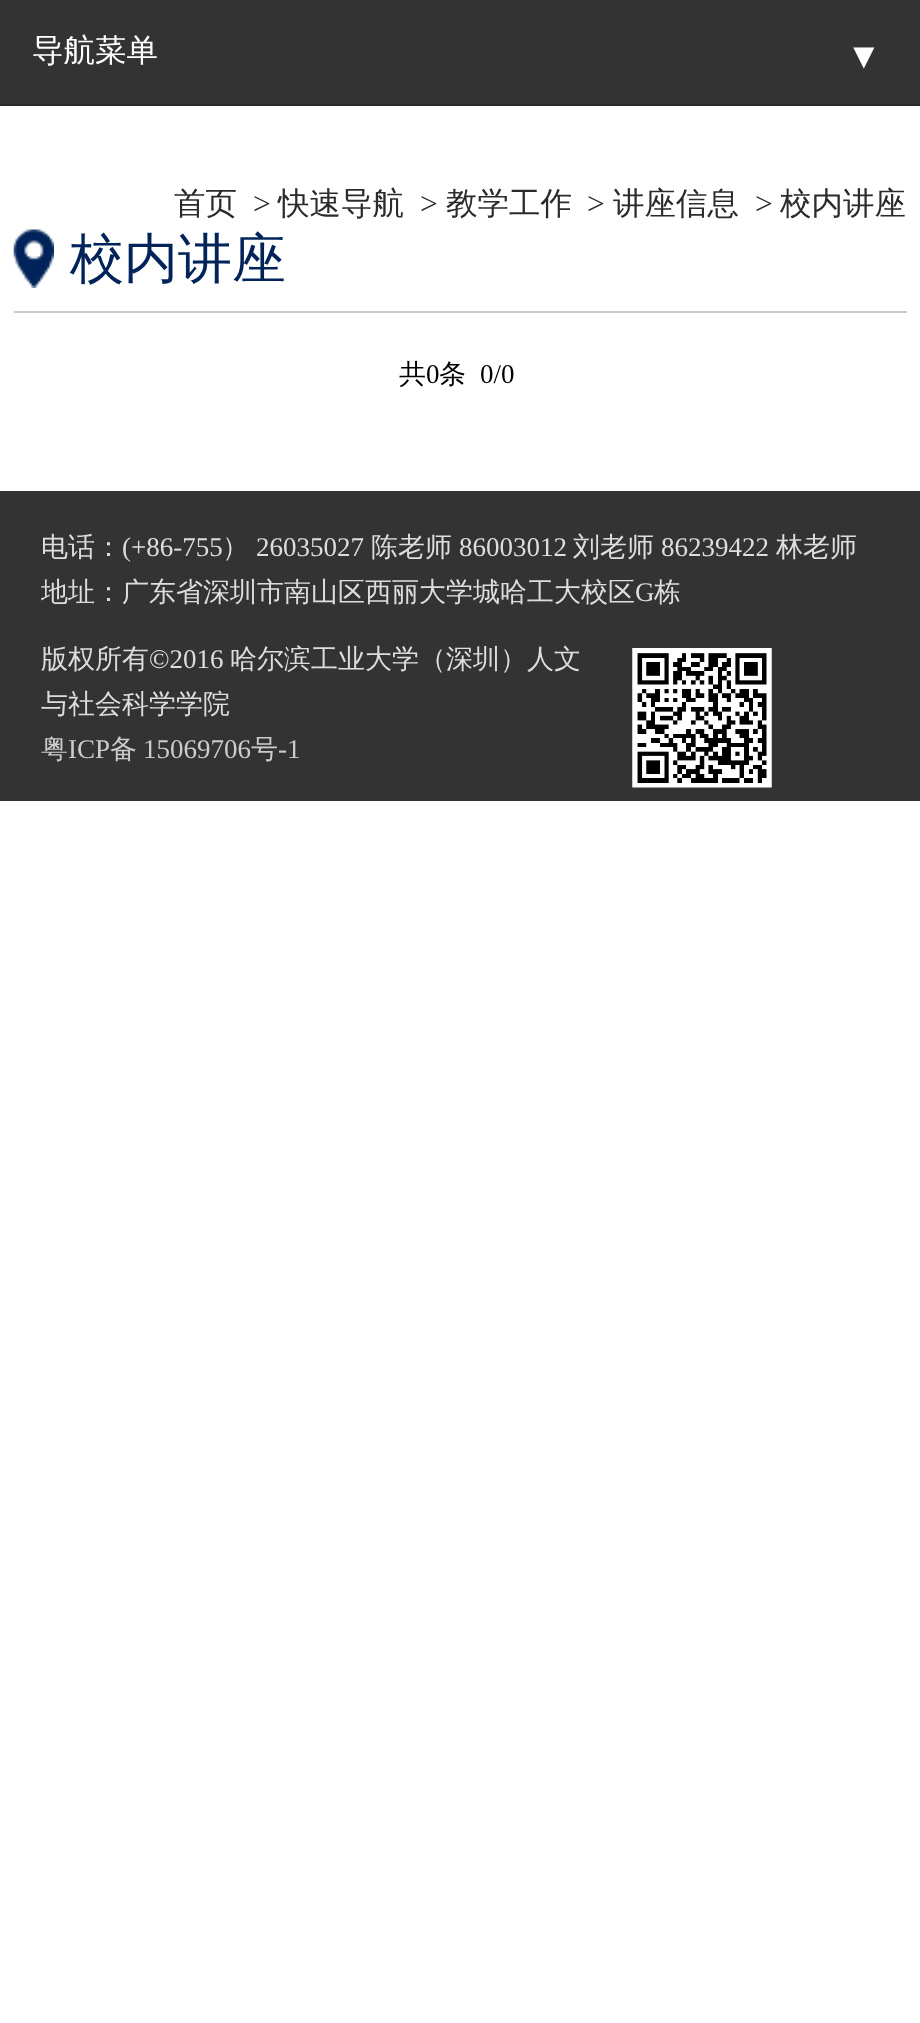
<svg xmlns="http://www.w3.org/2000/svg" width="920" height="2023">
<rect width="100%" height="100%" fill="#fff"/>
<rect width="920" height="104" fill="#333"/>
<rect y="104" width="920" height="2" fill="#292929"/>
<text x="32" y="61" style="font-family:WenQuanYi Zen Hei;font-size:31.5px;font-weight:500;fill:#fff">导航菜单</text>
<text x="846" y="68" style="font-family:Liberation Serif;font-size:36px;font-style:italic;fill:#fff">▼</text>
<rect x="14" y="311" width="893" height="2" fill="#cacaca"/>
<text x="174" y="214" style="font-family:WenQuanYi Zen Hei;font-size:31.5px;font-weight:500;fill:#2b2b2b">首页</text>
<text x="253" y="214" style="font-family:Liberation Serif;font-size:31.5px;fill:#2b2b2b">&gt;</text>
<text x="278" y="214" style="font-family:WenQuanYi Zen Hei;font-size:31.5px;font-weight:500;fill:#2b2b2b">快速导航</text>
<text x="420" y="214" style="font-family:Liberation Serif;font-size:31.5px;fill:#2b2b2b">&gt;</text>
<text x="446" y="214" style="font-family:WenQuanYi Zen Hei;font-size:31.5px;font-weight:500;fill:#2b2b2b">教学工作</text>
<text x="587" y="214" style="font-family:Liberation Serif;font-size:31.5px;fill:#2b2b2b">&gt;</text>
<text x="613" y="214" style="font-family:WenQuanYi Zen Hei;font-size:31.5px;font-weight:500;fill:#2b2b2b">讲座信息</text>
<text x="755" y="214" style="font-family:Liberation Serif;font-size:31.5px;fill:#2b2b2b">&gt;</text>
<text x="780" y="214" style="font-family:WenQuanYi Zen Hei;font-size:31.5px;font-weight:500;fill:#2b2b2b">校内讲座</text>
<image x="13" y="229" width="41" height="59" href="media/1.png"/>
<text x="70" y="277" style="font-family:WenQuanYi Zen Hei;font-size:54px;font-weight:500;fill:#002459">校内讲座</text>
<text x="399" y="383" style="font-family:WenQuanYi Zen Hei;font-size:27px;font-weight:500;fill:#000">共</text>
<text x="426" y="383" style="font-family:Liberation Serif;font-size:27px;fill:#000">0</text>
<text x="439" y="383" style="font-family:WenQuanYi Zen Hei;font-size:27px;font-weight:500;fill:#000">条</text>
<text x="480" y="383" style="font-family:Liberation Serif;font-size:27px;fill:#000">0/0</text>
<rect y="491" width="920" height="310" fill="#333"/>
<text x="41" y="556" style="font-family:WenQuanYi Zen Hei;font-size:27px;font-weight:500;fill:#ddd">电话：</text>
<text x="122" y="556" style="font-family:Liberation Serif;font-size:27px;fill:#ddd">(+86-755</text>
<text x="222" y="556" style="font-family:WenQuanYi Zen Hei;font-size:27px;font-weight:500;fill:#ddd">）</text>
<text x="256" y="556" style="font-family:Liberation Serif;font-size:27px;fill:#ddd">26035027</text>
<text x="371" y="556" style="font-family:WenQuanYi Zen Hei;font-size:27px;font-weight:500;fill:#ddd">陈老师</text>
<text x="459" y="556" style="font-family:Liberation Serif;font-size:27px;fill:#ddd">86003012</text>
<text x="573" y="556" style="font-family:WenQuanYi Zen Hei;font-size:27px;font-weight:500;fill:#ddd">刘老师</text>
<text x="661" y="556" style="font-family:Liberation Serif;font-size:27px;fill:#ddd">86239422</text>
<text x="776" y="556" style="font-family:WenQuanYi Zen Hei;font-size:27px;font-weight:500;fill:#ddd">林老师</text>
<text x="41" y="601" style="font-family:WenQuanYi Zen Hei;font-size:27px;font-weight:500;fill:#ddd">地址：广东省深圳市南山区西丽大学城哈工大校区</text>
<text x="635" y="601" style="font-family:Liberation Serif;font-size:27px;fill:#ddd">G</text>
<text x="654" y="601" style="font-family:WenQuanYi Zen Hei;font-size:27px;font-weight:500;fill:#ddd">栋</text>
<text x="41" y="668" style="font-family:WenQuanYi Zen Hei;font-size:27px;font-weight:500;fill:#ddd">版权所有</text>
<text x="149" y="668" style="font-family:Liberation Serif;font-size:27px;fill:#ddd">©2016</text>
<text x="230" y="668" style="font-family:WenQuanYi Zen Hei;font-size:27px;font-weight:500;fill:#ddd">哈尔滨工业大学（深圳）人文</text>
<text x="41" y="713" style="font-family:WenQuanYi Zen Hei;font-size:27px;font-weight:500;fill:#ddd">与社会科学学院</text>
<text x="41" y="758" style="font-family:WenQuanYi Zen Hei;font-size:27px;font-weight:500;fill:#ccc">粤</text>
<text x="68" y="758" style="font-family:Liberation Serif;font-size:27px;fill:#ccc">ICP</text>
<text x="110" y="758" style="font-family:WenQuanYi Zen Hei;font-size:27px;font-weight:500;fill:#ccc">备</text>
<text x="143" y="758" style="font-family:Liberation Serif;font-size:27px;fill:#ccc">15069706</text>
<text x="251" y="758" style="font-family:WenQuanYi Zen Hei;font-size:27px;font-weight:500;fill:#ccc">号</text>
<text x="278" y="758" style="font-family:Liberation Serif;font-size:27px;fill:#ccc">-1</text>
<image x="632" y="648" width="140" height="140" href="media/2.png"/>
</svg>
